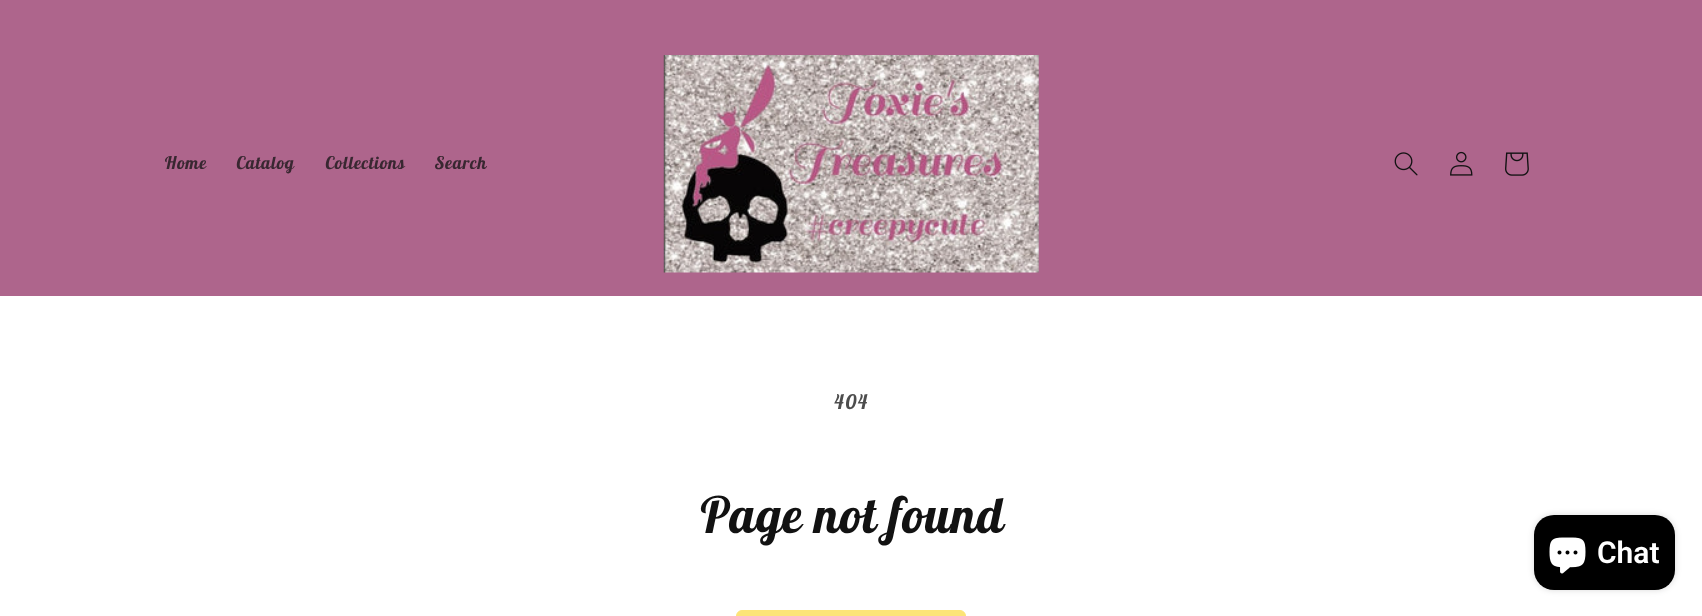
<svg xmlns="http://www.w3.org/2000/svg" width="1702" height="616">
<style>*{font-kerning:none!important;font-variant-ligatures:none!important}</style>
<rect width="100%" height="100%" fill="#fff"/>
<rect width="1702" height="296" fill="#ae658c"/>
<text x="164" y="169" style="font-family:Lobster Two;font-size:17.5px;font-weight:bold;font-style:italic;letter-spacing:0.75px;fill:#392731">Home</text>
<text x="236" y="169" style="font-family:Lobster Two;font-size:17.5px;font-weight:bold;font-style:italic;letter-spacing:0.75px;fill:#392731">Catalog</text>
<text x="325" y="169" style="font-family:Lobster Two;font-size:17.5px;font-weight:bold;font-style:italic;letter-spacing:0.75px;fill:#392731">Collections</text>
<text x="435" y="169" style="font-family:Lobster Two;font-size:17.5px;font-weight:bold;font-style:italic;letter-spacing:0.75px;fill:#392731">Search</text>
<image x="663" y="55" width="376" height="218" href="media/1.png"/>
<image x="1394" y="152" width="24" height="24" href="media/2.png"/>
<image x="1450" y="151" width="23" height="25" href="media/3.png"/>
<image x="1505" y="152" width="24" height="24" href="media/4.png"/>
<text x="834" y="409" style="font-family:Lobster Two;font-size:20px;font-weight:bold;font-style:italic;letter-spacing:0.75px;fill:#4d4d4d">404</text>
<text x="698" y="533" style="font-family:Lobster Two;font-size:50px;font-weight:bold;font-style:italic;letter-spacing:0.75px;fill:#121212">Page not found</text>
<rect x="736.5" y="610.5" width="229" height="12" rx="5.5" fill="#fce477" stroke="#fce477"/>
<rect x="1534" y="515" width="141" height="75" rx="20" fill="#00000026" filter="blur(3px)"/>
<rect x="1534" y="515" width="141" height="75" rx="20" fill="#000"/>
<image x="1549" y="537" width="37" height="37" href="media/5.png"/>
<text x="1597" y="563" style="font-family:Roboto;font-size:30px;font-weight:600;fill:#fff">Chat</text>
</svg>
